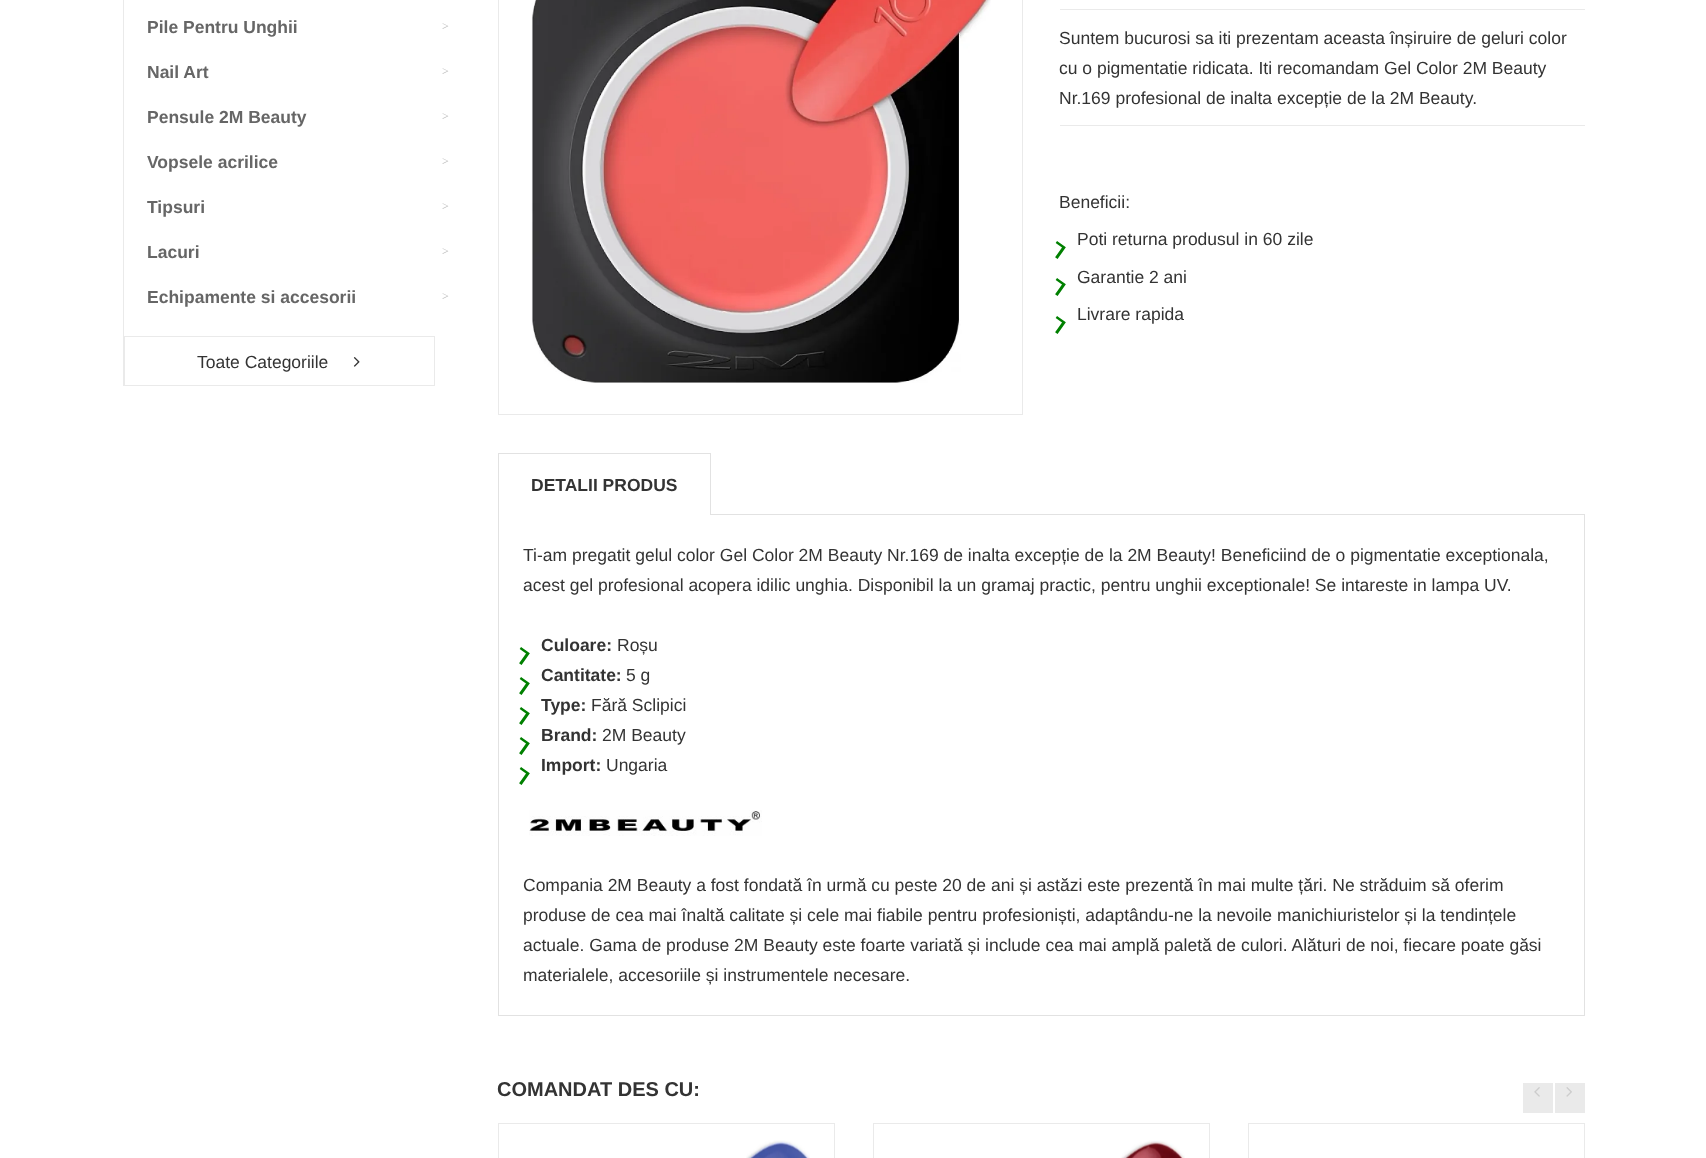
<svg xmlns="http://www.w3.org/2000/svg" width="1706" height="1158">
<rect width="100%" height="100%" fill="#fff"/>
<rect x="123" width="1" height="386" fill="#eaeaea"/>
<text x="147" y="33" style="font-family:Liberation Sans;font-size:17.5px;font-weight:bold;fill:#666">Pile Pentru Unghii</text>
<text x="442" y="30" style="font-family:Liberation Serif;font-size:12px;fill:#bbb">&gt;</text>
<text x="147" y="78" style="font-family:Liberation Sans;font-size:17.5px;font-weight:bold;fill:#666">Nail Art</text>
<text x="442" y="75" style="font-family:Liberation Serif;font-size:12px;fill:#bbb">&gt;</text>
<text x="147" y="123" style="font-family:Liberation Sans;font-size:17.5px;font-weight:bold;fill:#666">Pensule 2M Beauty</text>
<text x="442" y="120" style="font-family:Liberation Serif;font-size:12px;fill:#bbb">&gt;</text>
<text x="147" y="168" style="font-family:Liberation Sans;font-size:17.5px;font-weight:bold;fill:#666">Vopsele acrilice</text>
<text x="442" y="165" style="font-family:Liberation Serif;font-size:12px;fill:#bbb">&gt;</text>
<text x="147" y="213" style="font-family:Liberation Sans;font-size:17.5px;font-weight:bold;fill:#666">Tipsuri</text>
<text x="442" y="210" style="font-family:Liberation Serif;font-size:12px;fill:#bbb">&gt;</text>
<text x="147" y="258" style="font-family:Liberation Sans;font-size:17.5px;font-weight:bold;fill:#666">Lacuri</text>
<text x="442" y="255" style="font-family:Liberation Serif;font-size:12px;fill:#bbb">&gt;</text>
<text x="147" y="303" style="font-family:Liberation Sans;font-size:17.5px;font-weight:bold;fill:#666">Echipamente si accesorii</text>
<text x="442" y="300" style="font-family:Liberation Serif;font-size:12px;fill:#bbb">&gt;</text>
<rect x="124.5" y="336.5" width="310" height="49" fill="none" stroke="#eaeaea"/>
<text x="197" y="368" style="font-family:Liberation Sans;font-size:17.5px;fill:#333">Toate Categoriile</text>
<image x="353" y="357" width="7" height="10" href="media/1.png"/>
<rect x="498.5" y="-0.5" width="524" height="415" fill="none" stroke="#eaeaea"/>
<image x="531" y="0" width="460" height="383" href="media/2.png"/>
<rect x="1060" y="9" width="525" height="1" fill="#eaeaea"/>
<text x="1059" y="44" style="font-family:Liberation Sans;font-size:17.5px;fill:#333">Suntem bucurosi sa iti prezentam aceasta înșiruire de geluri color</text>
<text x="1059" y="74" style="font-family:Liberation Sans;font-size:17.5px;fill:#333">cu o pigmentatie ridicata. Iti recomandam Gel Color 2M Beauty</text>
<text x="1059" y="104" style="font-family:Liberation Sans;font-size:17.5px;fill:#333">Nr.169 profesional de inalta excepție de la 2M Beauty.</text>
<rect x="1060" y="125" width="525" height="1" fill="#eaeaea"/>
<text x="1059" y="208" style="font-family:Liberation Sans;font-size:17.5px;fill:#333">Beneficii:</text>
<text x="1067" y="248" transform="rotate(-145 1067 248)" style="font-family:Liberation Sans;font-size:21px;font-weight:bold;fill:#008000">L</text>
<text x="1077" y="245" style="font-family:Liberation Sans;font-size:17.5px;fill:#333">Poti returna produsul in 60 zile</text>
<text x="1067" y="285" transform="rotate(-145 1067 285)" style="font-family:Liberation Sans;font-size:21px;font-weight:bold;fill:#008000">L</text>
<text x="1077" y="283" style="font-family:Liberation Sans;font-size:17.5px;fill:#333">Garantie 2 ani</text>
<text x="1067" y="323" transform="rotate(-145 1067 323)" style="font-family:Liberation Sans;font-size:21px;font-weight:bold;fill:#008000">L</text>
<text x="1077" y="320" style="font-family:Liberation Sans;font-size:17.5px;fill:#333">Livrare rapida</text>
<rect x="498" y="453" width="213" height="61" fill="#e2e2e2"/>
<rect x="498.5" y="514.5" width="1086" height="501" fill="none" stroke="#e2e2e2"/>
<rect x="499" y="454" width="211" height="61" fill="#fff"/>
<text x="531" y="491" style="font-family:Liberation Sans;font-size:17.5px;font-weight:bold;fill:#333">DETALII PRODUS</text>
<text x="523" y="561" style="font-family:Liberation Sans;font-size:17.5px;fill:#333">Ti-am pregatit gelul color Gel Color 2M Beauty Nr.169 de inalta excepție de la 2M Beauty! Beneficiind de o pigmentatie exceptionala,</text>
<text x="523" y="591" style="font-family:Liberation Sans;font-size:17.5px;fill:#333">acest gel profesional acopera idilic unghia. Disponibil la un gramaj practic, pentru unghii exceptionale! Se intareste in lampa UV.</text>
<text x="531" y="654" transform="rotate(-145 531 654)" style="font-family:Liberation Sans;font-size:21px;font-weight:bold;fill:#008000">L</text>
<text x="541" y="651" style="font-family:Liberation Sans;font-size:17.5px;font-weight:bold;fill:#333">Culoare:</text>
<text x="617" y="651" style="font-family:Liberation Sans;font-size:17.5px;fill:#333">Roșu</text>
<text x="531" y="684" transform="rotate(-145 531 684)" style="font-family:Liberation Sans;font-size:21px;font-weight:bold;fill:#008000">L</text>
<text x="541" y="681" style="font-family:Liberation Sans;font-size:17.5px;font-weight:bold;fill:#333">Cantitate:</text>
<text x="626" y="681" style="font-family:Liberation Sans;font-size:17.5px;fill:#333">5 g</text>
<text x="531" y="714" transform="rotate(-145 531 714)" style="font-family:Liberation Sans;font-size:21px;font-weight:bold;fill:#008000">L</text>
<text x="541" y="711" style="font-family:Liberation Sans;font-size:17.5px;font-weight:bold;fill:#333">Type:</text>
<text x="591" y="711" style="font-family:Liberation Sans;font-size:17.5px;fill:#333">Fără Sclipici</text>
<text x="531" y="744" transform="rotate(-145 531 744)" style="font-family:Liberation Sans;font-size:21px;font-weight:bold;fill:#008000">L</text>
<text x="541" y="741" style="font-family:Liberation Sans;font-size:17.5px;font-weight:bold;fill:#333">Brand:</text>
<text x="602" y="741" style="font-family:Liberation Sans;font-size:17.5px;fill:#333">2M Beauty</text>
<text x="531" y="774" transform="rotate(-145 531 774)" style="font-family:Liberation Sans;font-size:21px;font-weight:bold;fill:#008000">L</text>
<text x="541" y="771" style="font-family:Liberation Sans;font-size:17.5px;font-weight:bold;fill:#333">Import:</text>
<text x="606" y="771" style="font-family:Liberation Sans;font-size:17.5px;fill:#333">Ungaria</text>
<image x="529" y="810" width="233" height="26" href="media/3.png"/>
<text x="523" y="891" style="font-family:Liberation Sans;font-size:17.5px;fill:#333">Compania 2M Beauty a fost fondată în urmă cu peste 20 de ani și astăzi este prezentă în mai multe țări. Ne străduim să oferim</text>
<text x="523" y="921" style="font-family:Liberation Sans;font-size:17.5px;fill:#333">produse de cea mai înaltă calitate și cele mai fiabile pentru profesioniști, adaptându-ne la nevoile manichiuristelor și la tendințele</text>
<text x="523" y="951" style="font-family:Liberation Sans;font-size:17.5px;fill:#333">actuale. Gama de produse 2M Beauty este foarte variată și include cea mai amplă paletă de culori. Alături de noi, fiecare poate găsi</text>
<text x="523" y="981" style="font-family:Liberation Sans;font-size:17.5px;fill:#333">materialele, accesoriile și instrumentele necesare.</text>
<text x="497" y="1096" style="font-family:Liberation Sans;font-size:20px;font-weight:bold;fill:#333">COMANDAT DES CU:</text>
<rect x="1523" y="1083" width="30" height="30" fill="#eaeaea"/>
<image x="1534" y="1087" width="6" height="10" href="media/4.png"/>
<rect x="1555" y="1083" width="30" height="30" fill="#eaeaea"/>
<image x="1566" y="1087" width="6" height="10" href="media/5.png"/>
<rect x="498.5" y="1123.5" width="336" height="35" fill="none" stroke="#eaeaea"/>
<image x="746" y="1140" width="64" height="18" href="media/6.png"/>
<rect x="873.5" y="1123.5" width="336" height="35" fill="none" stroke="#eaeaea"/>
<image x="1121" y="1140" width="64" height="18" href="media/7.png"/>
<rect x="1248.5" y="1123.5" width="336" height="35" fill="none" stroke="#eaeaea"/>
</svg>
